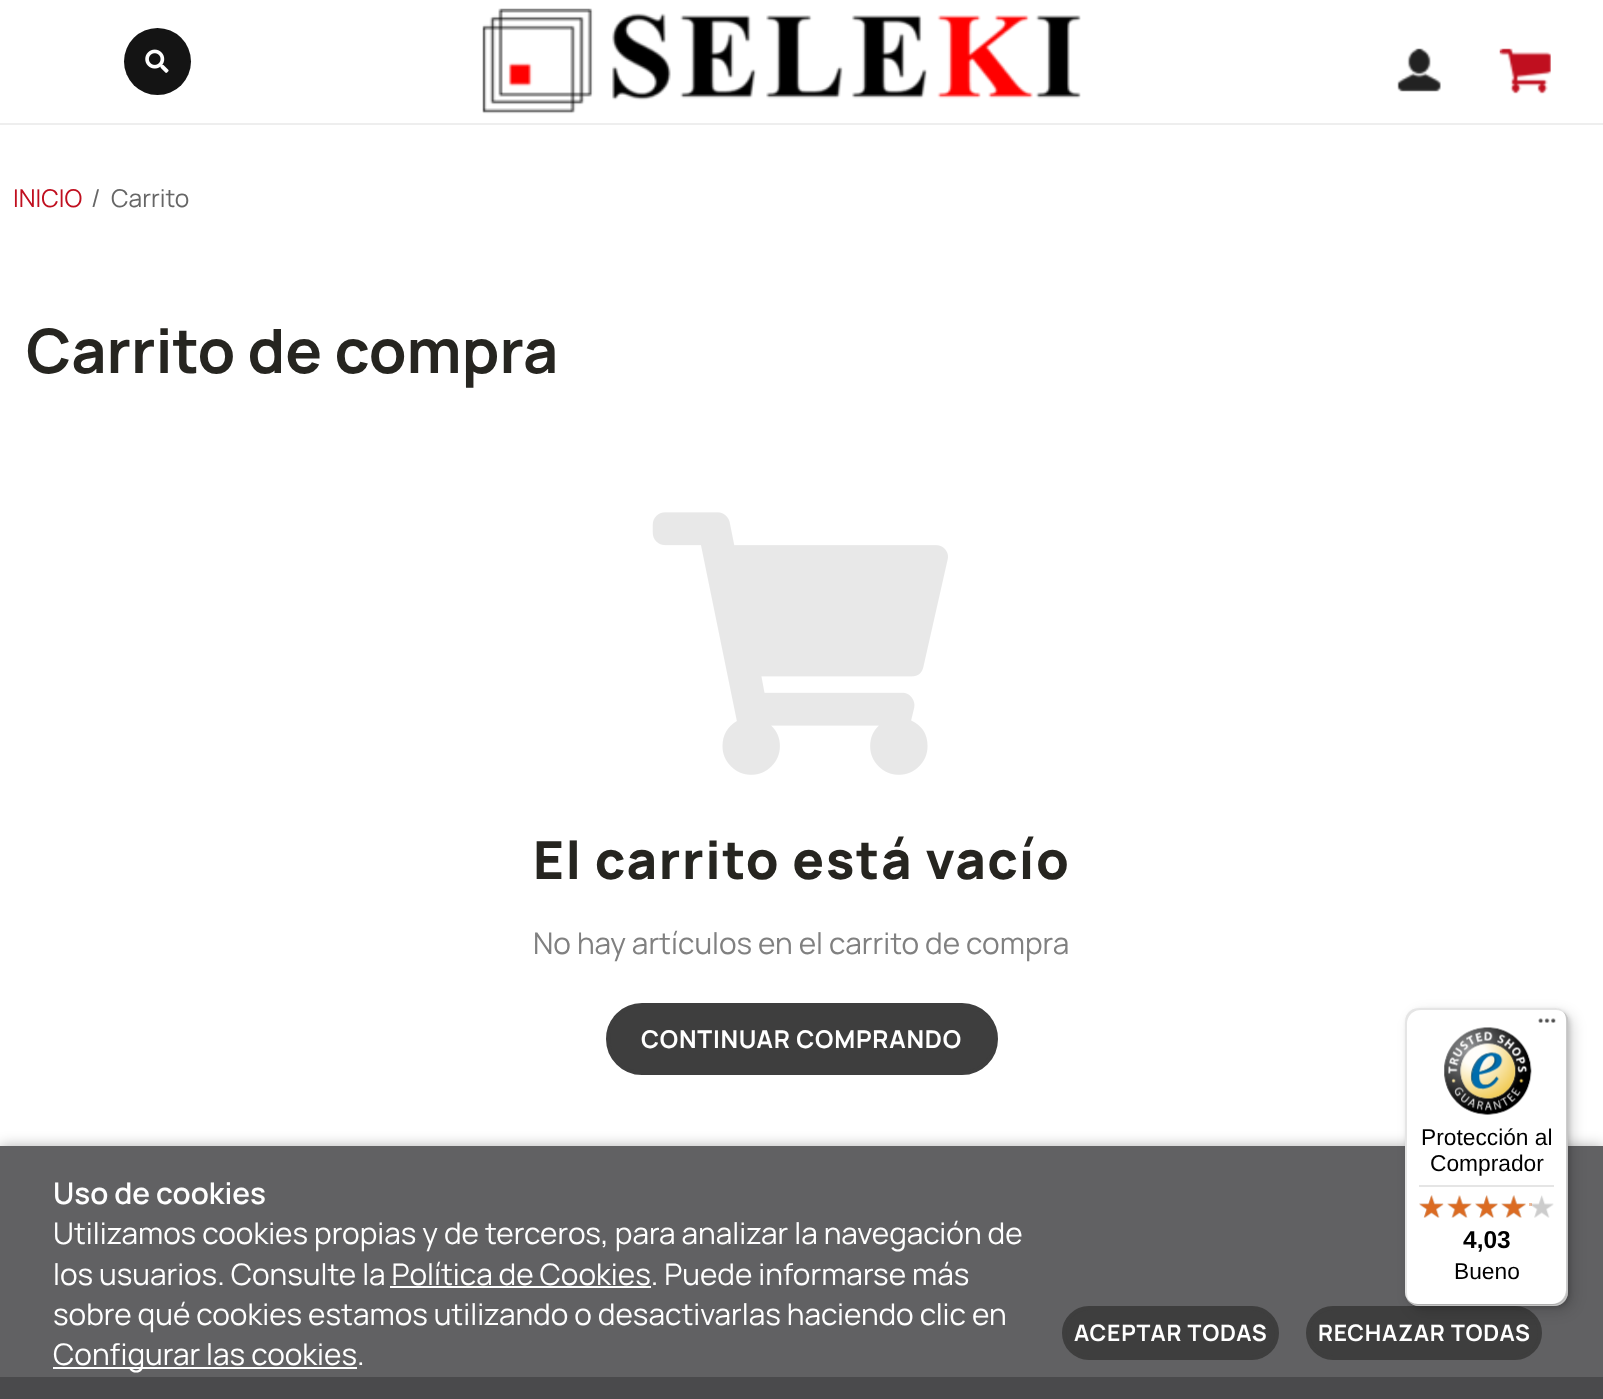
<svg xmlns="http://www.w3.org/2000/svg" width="1603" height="1399">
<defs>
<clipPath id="clip1"><path d="M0 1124h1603v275h-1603zm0 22h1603v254h-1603z" clip-rule="evenodd"/></clipPath>
</defs>
<rect width="100%" height="100%" fill="#fff"/>
<rect y="123" width="1603" height="2" fill="#eee"/>
<circle cx="157.5" cy="61.5" r="33.5" fill="#141414"/>
<image x="145" y="49" width="24" height="24" href="media/1.png"/>
<image x="482" y="8" width="599" height="106" href="media/2.png"/>
<image x="1397" y="48" width="44" height="44" href="media/3.png"/>
<image x="1499" y="48" width="52" height="46" href="media/4.png"/>
<text x="13" y="207" style="font-family:Manrope;font-size:24.5px;fill:#c00f1f">INICIO</text>
<text x="91" y="207" style="font-family:Manrope;font-size:24.5px;fill:#666">/</text>
<text x="111" y="207" style="font-family:Manrope;font-size:24.5px;fill:#666">Carrito</text>
<text x="26" y="373" style="font-family:Manrope;font-size:61.25px;font-weight:bold;fill:#262520">Carrito de compra</text>
<image x="652" y="512" width="296" height="263" href="media/5.png"/>
<text x="533" y="879" style="font-family:Manrope;font-size:52.5px;font-weight:800;letter-spacing:1.6px;fill:#262520">El carrito está vacío</text>
<text x="533" y="954" style="font-family:Manrope;font-size:29.75px;fill:#808080">No hay artículos en el carrito de compra</text>
<rect x="608" y="1005" width="388" height="68" rx="34" fill="#3e3e3e" stroke="#3e3e3e" stroke-width="4"/>
<text x="641" y="1048" style="font-family:Manrope;font-size:24.5px;font-weight:bold;letter-spacing:0.75px;fill:#fff">CONTINUAR COMPRANDO</text>
<rect y="1377" width="1603" height="22" fill="#141414"/>
<g clip-path="url(#clip1)">
<rect y="1146" width="1603" height="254" fill="#0000004d" filter="blur(7px)"/>
</g>
<rect y="1146" width="1603" height="253" fill="#505052e6"/>
<rect x="1308" y="1308" width="232" height="50" rx="25" fill="#3e3e3e" stroke="#3e3e3e" stroke-width="4"/>
<rect x="1411" y="1013" width="162" height="298" rx="14" fill="#00000026" filter="blur(7px)"/>
<rect x="1407" y="1010" width="163" height="297" rx="14" fill="#00000026" filter="blur(2px)"/>
<rect x="1405" y="1008" width="163" height="298" rx="14" fill="#fff"/>
<path d="M1421 1010h135c3 0 7 1 9 4c-2-4-6-6-11-6h-135c-8 0-14 6-14 14v270c0 6 3 10 8 13c-4-3-6-7-6-12v-269c0-8 6-14 14-14z" fill="#0000001a"/>
<path d="M1406 1297c2 5 7 9 13 9h135c8 0 14-6 14-14v-270c0-5-2-9-6-11c3 2 4 6 4 9v270c0 7-6 14-14 14h-134c-5 0-10-3-12-7z" fill="#00000033"/>
<path d="M1406 1298c3 5 7 8 13 8h135c8 0 14-6 14-14v-270c0-4-1-7-4-9c2 2 3 5 3 8v269c0 8-6 14-14 14h-135c-5 0-9-2-12-6z" fill="#32323233"/>
<path d="M1407 1299c2 4 7 7 12 7h135c8 0 14-6 14-14v-270c0-4-1-7-4-9c2 2 3 5 3 8v270c0 7-6 14-14 14h-135c-4 0-9-3-11-6z" fill="#ffffff4d"/>
<image x="1538" y="1018" width="18" height="5" href="media/6.png"/>
<image x="1444" y="1027" width="88" height="88" href="media/7.png"/>
<text x="1421" y="1145" style="font-family:Liberation Sans;font-size:22.75px;fill:#000">Protección al</text>
<text x="1430" y="1171" style="font-family:Liberation Sans;font-size:22.75px;fill:#000">Comprador</text>
<rect x="1419" y="1185" width="135" height="2" fill="#e5e5e5"/>
<image x="1419" y="1195" width="24" height="23" href="media/8.png"/>
<image x="1447" y="1195" width="25" height="23" href="media/9.png"/>
<image x="1475" y="1195" width="23" height="23" href="media/10.png"/>
<image x="1501" y="1195" width="25" height="23" href="media/11.png"/>
<image x="1530" y="1195" width="24" height="23" href="media/12.png"/>
<image x="1419" y="1195" width="25" height="23" href="media/13.png"/>
<image x="1447" y="1195" width="25" height="23" href="media/14.png"/>
<image x="1475" y="1195" width="23" height="23" href="media/15.png"/>
<image x="1501" y="1195" width="25" height="23" href="media/16.png"/>
<rect x="1529" y="1203" width="3" height="3" fill="#dc6a2066"/>
<text x="1463" y="1248" style="font-family:Liberation Sans;font-size:24.5px;font-weight:bold;fill:#000">4,03</text>
<text x="1454" y="1279" style="font-family:Liberation Sans;font-size:22.75px;fill:#000">Bueno</text>
<text x="53" y="1204" style="font-family:Manrope;font-size:29.75px;font-weight:600;fill:#fff">Uso de cookies</text>
<text x="53" y="1244" style="font-family:Manrope;font-size:29.75px;fill:#fff">Utilizamos cookies propias y de terceros, para analizar la navegación de</text>
<text x="53" y="1285" style="font-family:Manrope;font-size:29.75px;fill:#fff">los usuarios. Consulte la Política de Cookies. Puede informarse más</text>
<rect x="390" y="1286" width="261" height="2" fill="#fff"/>
<text x="53" y="1325" style="font-family:Manrope;font-size:29.75px;fill:#fff">sobre qué cookies estamos utilizando o desactivarlas haciendo clic en</text>
<rect x="53" y="1367" width="304" height="2" fill="#fff"/>
<text x="53" y="1365" style="font-family:Manrope;font-size:29.75px;fill:#fff">Configurar las cookies.</text>
<rect x="1064" y="1308" width="213" height="50" rx="25" fill="#3e3e3e" stroke="#3e3e3e" stroke-width="4"/>
<text x="1074" y="1341" style="font-family:Manrope;font-size:22.75px;font-weight:bold;letter-spacing:0.75px;fill:#fff">ACEPTAR TODAS</text>
<text x="1318" y="1341" style="font-family:Manrope;font-size:22.75px;font-weight:bold;letter-spacing:0.75px;fill:#fff">RECHAZAR TODAS</text>
</svg>
